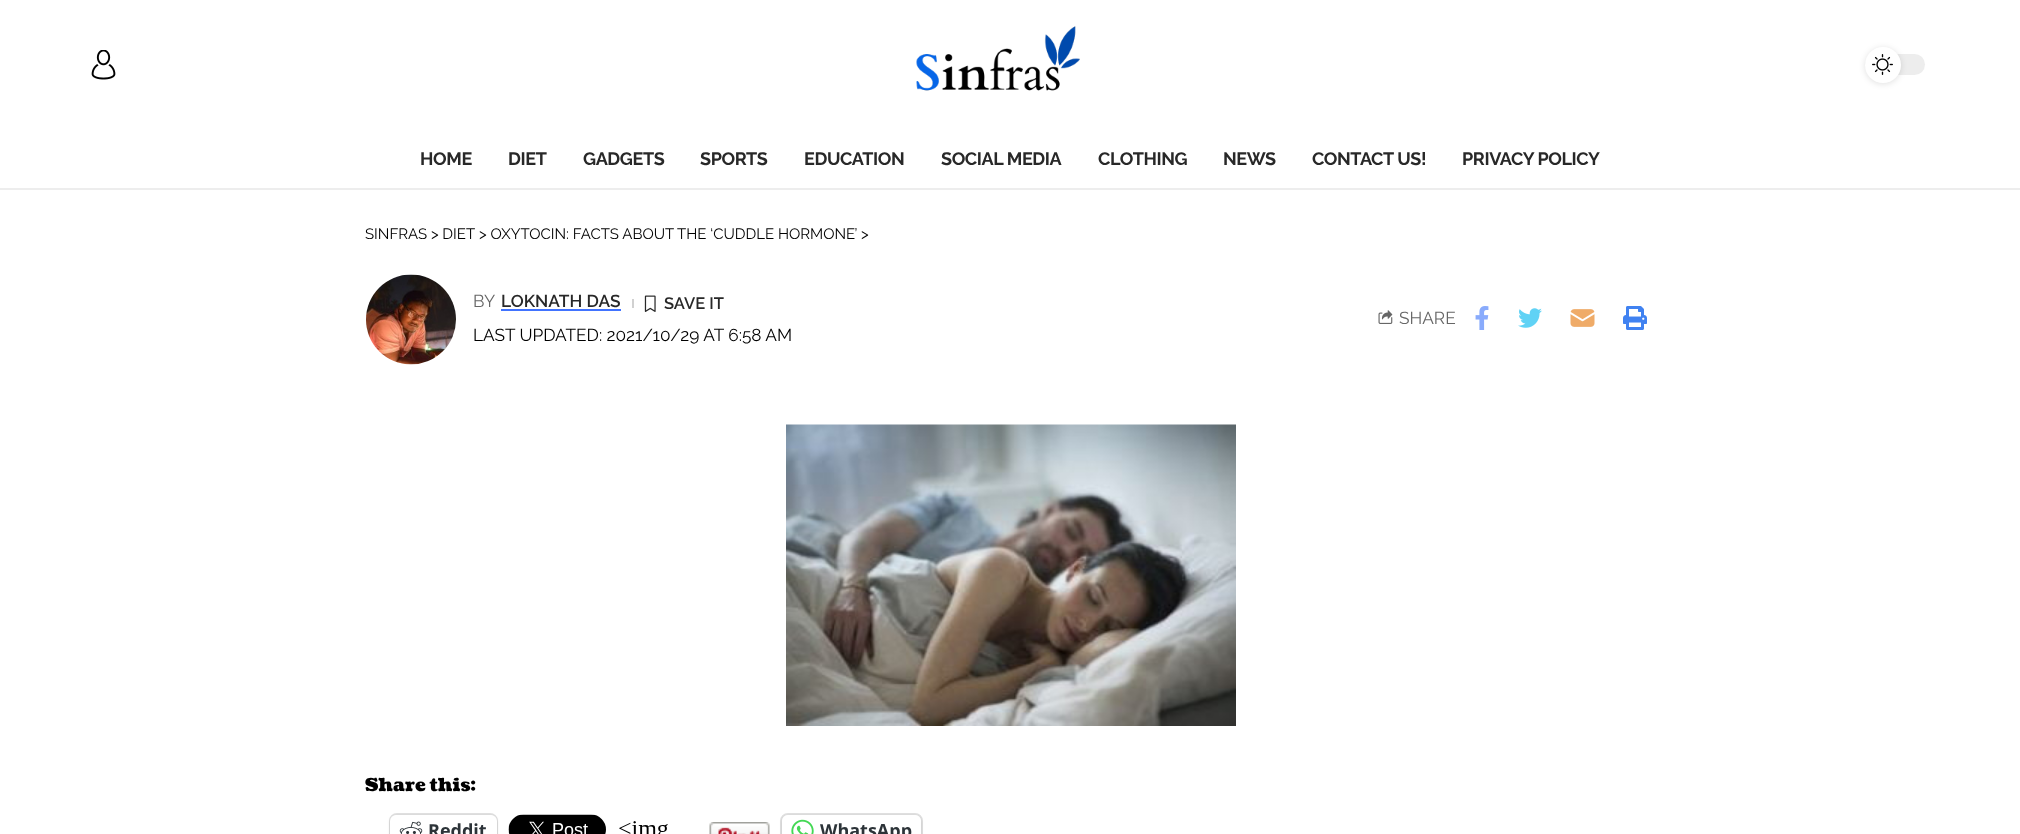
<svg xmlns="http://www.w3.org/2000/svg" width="2020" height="834">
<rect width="100%" height="100%" fill="#fff"/>
<image x="91" y="50" width="25" height="30" href="media/1.png"/>
<image x="916" y="26" width="164" height="65" href="media/2.png"/>
<rect x="1865" y="54" width="60" height="21" rx="10.5" fill="#ededed"/>
<rect x="1865" y="48" width="36" height="36" rx="18" fill="#0000001f" filter="blur(3px)"/>
<circle cx="1883" cy="65" r="18" fill="#fff"/>
<image x="1872" y="54" width="21" height="21" href="media/3.png"/>
<text x="420" y="165" style="font-family:Raleway;font-size:18px;font-weight:bold;letter-spacing:-0.4px;fill:#282828">HOME</text>
<text x="508" y="165" style="font-family:Raleway;font-size:18px;font-weight:bold;letter-spacing:-0.4px;fill:#282828">DIET</text>
<text x="583" y="165" style="font-family:Raleway;font-size:18px;font-weight:bold;letter-spacing:-0.4px;fill:#282828">GADGETS</text>
<text x="700" y="165" style="font-family:Raleway;font-size:18px;font-weight:bold;letter-spacing:-0.4px;fill:#282828">SPORTS</text>
<text x="804" y="165" style="font-family:Raleway;font-size:18px;font-weight:bold;letter-spacing:-0.4px;fill:#282828">EDUCATION</text>
<text x="941" y="165" style="font-family:Raleway;font-size:18px;font-weight:bold;letter-spacing:-0.4px;fill:#282828">SOCIAL MEDIA</text>
<text x="1098" y="165" style="font-family:Raleway;font-size:18px;font-weight:bold;letter-spacing:-0.4px;fill:#282828">CLOTHING</text>
<text x="1223" y="165" style="font-family:Raleway;font-size:18px;font-weight:bold;letter-spacing:-0.4px;fill:#282828">NEWS</text>
<text x="1312" y="165" style="font-family:Raleway;font-size:18px;font-weight:bold;letter-spacing:-0.4px;fill:#282828">CONTACT US!</text>
<text x="1462" y="165" style="font-family:Raleway;font-size:18px;font-weight:bold;letter-spacing:-0.4px;fill:#282828">PRIVACY POLICY</text>
<rect y="188" width="2020" height="2" fill="#ededed"/>
<text x="365" y="239" style="font-family:Raleway;font-size:15px;fill:#000">SINFRAS &gt; DIET</text>
<text x="479" y="239" style="font-family:Raleway;font-size:15px;fill:#000">&gt; OXYTOCIN: FACTS ABOUT THE ‘CUDDLE HORMONE’</text>
<text x="861" y="239" style="font-family:Raleway;font-size:15px;fill:#000">&gt;</text>
<image x="366" y="274" width="90" height="91" href="media/4.png"/>
<text x="473" y="307" style="font-family:Raleway;font-size:17.25px;fill:#666">BY</text>
<text x="501" y="307" style="font-family:Raleway;font-size:17.25px;font-weight:600;fill:#282828">LOKNATH DAS</text>
<rect x="501" y="309" width="120" height="2" fill="#4173ff"/>
<rect x="632" y="299" width="2" height="9" fill="#d1d1d1"/>
<image x="644" y="295" width="12" height="17" href="media/5.png"/>
<text x="664" y="309" style="font-family:Raleway;font-size:16.5px;font-weight:600;fill:#282828">SAVE IT</text>
<text x="473" y="341" style="font-family:Raleway;font-size:17.25px;fill:#000">LAST UPDATED: 2021/10/29 AT 6:58 AM</text>
<image x="1378" y="310" width="15" height="14" href="media/6.png"/>
<text x="1399" y="324" style="font-family:Raleway;font-size:17.25px;fill:#666">SHARE</text>
<image x="1475" y="306" width="14" height="24" href="media/7.png"/>
<image x="1518" y="308" width="24" height="20" href="media/8.png"/>
<image x="1570" y="309" width="25" height="18" href="media/9.png"/>
<image x="1623" y="306" width="24" height="24" href="media/10.png"/>
<image x="786" y="424" width="450" height="302" href="media/11.png"/>
<text x="365" y="791" style="font-family:Coustard;font-size:18px;font-weight:900;fill:#000">Share this:</text>
<rect x="390" y="814" width="107" height="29" rx="7" fill="none" stroke="#e0e0e0" stroke-width="2"/>
<rect x="390" y="816" width="107" height="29" rx="6" fill="#0000001f" filter="blur(1.5px)"/>
<rect x="390" y="815" width="107" height="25" rx="6" fill="#fff"/>
<image x="399" y="821" width="24" height="13" href="media/12.png"/>
<text x="428" y="837" style="font-family:Open Sans;font-size:18px;font-weight:bold;fill:#2c3338">Reddit</text>
<image x="508" y="814" width="98" height="20" href="media/13.png"/>
<image x="619" y="821" width="49" height="13" href="media/14.png"/>
<image x="709" y="822" width="61" height="12" href="media/15.png"/>
<rect x="781" y="814" width="141" height="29" rx="7" fill="none" stroke="#e0e0e0" stroke-width="2"/>
<rect x="782" y="816" width="139" height="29" rx="6" fill="#0000001f" filter="blur(1.5px)"/>
<rect x="782" y="815" width="139" height="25" rx="6" fill="#fff"/>
<image x="791" y="819" width="23" height="15" href="media/16.png"/>
<text x="820" y="837" style="font-family:Open Sans;font-size:18px;font-weight:bold;fill:#2c3338">WhatsApp</text>
</svg>
